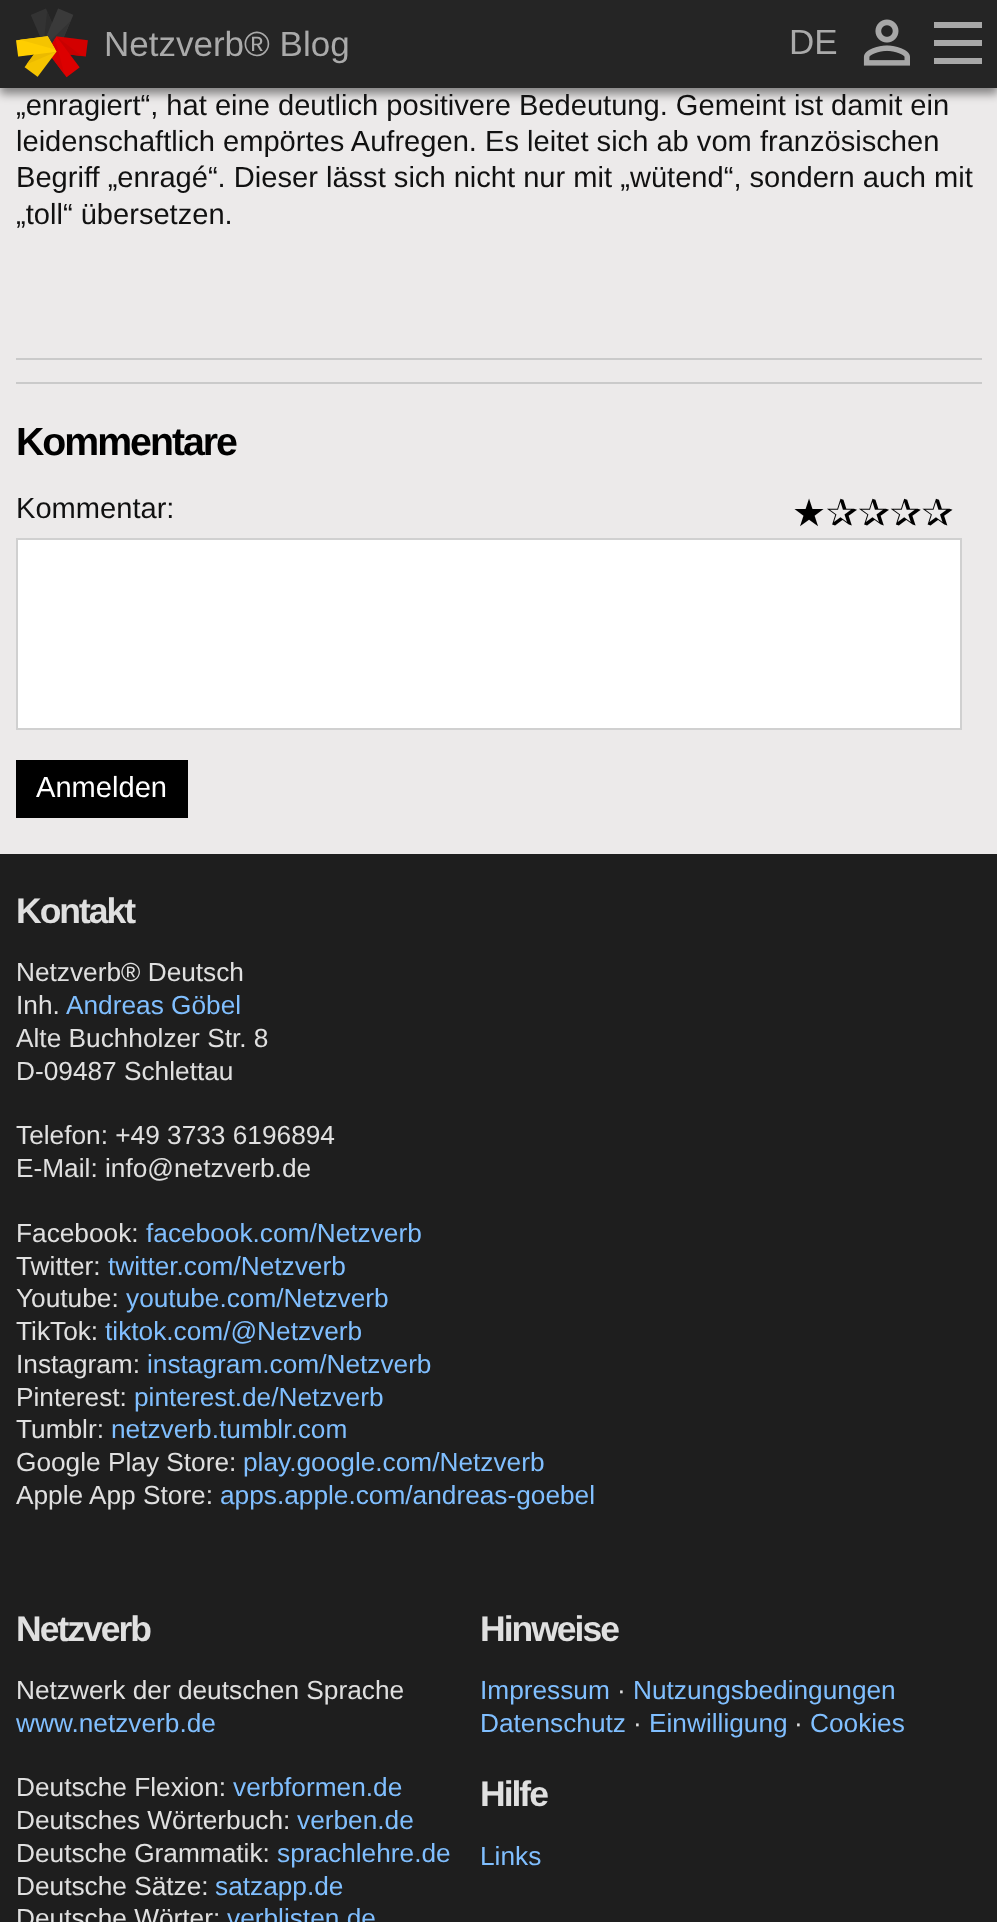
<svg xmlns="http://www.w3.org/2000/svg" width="997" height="1922">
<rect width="100%" height="100%" fill="#1e1e1e"/>
<rect y="88" width="997" height="766" fill="#eceaea"/>
<rect y="6" width="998" height="88" fill="#00000070" filter="blur(5px)"/>
<rect width="997" height="88" fill="#252525"/>
<image x="16" y="8" width="72" height="70" href="media/1.png"/>
<text x="104" y="56" style="font-family:Liberation Sans;font-size:35px;fill:#aaa">Netzverb® Blog</text>
<text x="789" y="54" style="font-family:Liberation Sans;font-size:35px;fill:#aaa">DE</text>
<image x="863" y="19" width="47" height="47" href="media/2.png"/>
<path d="M934 22h48v6h-48m0 12h48v6h-48m0 12h48v6h-48z" fill="#a8a8a8"/>
<text x="16" y="115" style="font-family:Liberation Sans;font-size:29.1px;fill:#111">„enragiert“, hat eine deutlich positivere Bedeutung. Gemeint ist damit ein</text>
<text x="16" y="151" style="font-family:Liberation Sans;font-size:29.1px;fill:#111">leidenschaftlich empörtes Aufregen. Es leitet sich ab vom französischen</text>
<text x="16" y="187" style="font-family:Liberation Sans;font-size:29.1px;fill:#111">Begriff „enragé“. Dieser lässt sich nicht nur mit „wütend“, sondern auch mit</text>
<text x="16" y="224" style="font-family:Liberation Sans;font-size:29.1px;fill:#111">„toll“ übersetzen.</text>
<rect x="16" y="358" width="966" height="2" fill="#cacaca"/>
<rect x="16" y="382" width="966" height="2" fill="#cacaca"/>
<text x="16" y="455" style="font-family:Liberation Sans;font-size:39.25px;font-weight:bold;letter-spacing:-2px;fill:#000">Kommentare</text>
<text x="16" y="518" style="font-family:Liberation Sans;font-size:29.1px;fill:#111">Kommentar:</text>
<text x="792" y="526" style="font-family:DejaVu Sans;font-size:38px;fill:#000">★✰✰✰✰</text>
<rect x="17" y="539" width="944" height="190" fill="#fff" stroke="#d0d0d0" stroke-width="2"/>
<rect x="16" y="760" width="172" height="58" fill="#000"/>
<text x="36" y="797" style="font-family:Liberation Sans;font-size:29.1px;fill:#fff">Anmelden</text>
<text x="16" y="923" style="font-family:Liberation Sans;font-size:35.5px;font-weight:bold;letter-spacing:-2px;fill:#e0e0e0">Kontakt</text>
<text x="16" y="981" style="font-family:Liberation Sans;font-size:26.25px;fill:#e0e0e0">Netzverb® Deutsch</text>
<text x="16" y="1014" style="font-family:Liberation Sans;font-size:26.25px;fill:#e0e0e0">Inh.</text>
<text x="66" y="1014" style="font-family:Liberation Sans;font-size:26.25px;fill:#80bfff">Andreas Göbel</text>
<text x="16" y="1047" style="font-family:Liberation Sans;font-size:26.25px;fill:#e0e0e0">Alte Buchholzer Str. 8</text>
<text x="16" y="1080" style="font-family:Liberation Sans;font-size:26.25px;fill:#e0e0e0">D-09487 Schlettau</text>
<text x="16" y="1144" style="font-family:Liberation Sans;font-size:26.25px;fill:#e0e0e0">Telefon: +49 3733 6196894</text>
<text x="16" y="1177" style="font-family:Liberation Sans;font-size:26.25px;fill:#e0e0e0">E-Mail: info@netzverb.de</text>
<text x="16" y="1242" style="font-family:Liberation Sans;font-size:26.25px;fill:#e0e0e0">Facebook:</text>
<text x="146" y="1242" style="font-family:Liberation Sans;font-size:26.25px;fill:#80bfff">facebook.com/Netzverb</text>
<text x="16" y="1275" style="font-family:Liberation Sans;font-size:26.25px;fill:#e0e0e0">Twitter:</text>
<text x="108" y="1275" style="font-family:Liberation Sans;font-size:26.25px;fill:#80bfff">twitter.com/Netzverb</text>
<text x="16" y="1307" style="font-family:Liberation Sans;font-size:26.25px;fill:#e0e0e0">Youtube:</text>
<text x="126" y="1307" style="font-family:Liberation Sans;font-size:26.25px;fill:#80bfff">youtube.com/Netzverb</text>
<text x="16" y="1340" style="font-family:Liberation Sans;font-size:26.25px;fill:#e0e0e0">TikTok:</text>
<text x="105" y="1340" style="font-family:Liberation Sans;font-size:26.25px;fill:#80bfff">tiktok.com/@Netzverb</text>
<text x="16" y="1373" style="font-family:Liberation Sans;font-size:26.25px;fill:#e0e0e0">Instagram:</text>
<text x="147" y="1373" style="font-family:Liberation Sans;font-size:26.25px;fill:#80bfff">instagram.com/Netzverb</text>
<text x="16" y="1406" style="font-family:Liberation Sans;font-size:26.25px;fill:#e0e0e0">Pinterest:</text>
<text x="134" y="1406" style="font-family:Liberation Sans;font-size:26.25px;fill:#80bfff">pinterest.de/Netzverb</text>
<text x="16" y="1438" style="font-family:Liberation Sans;font-size:26.25px;fill:#e0e0e0">Tumblr:</text>
<text x="111" y="1438" style="font-family:Liberation Sans;font-size:26.25px;fill:#80bfff">netzverb.tumblr.com</text>
<text x="16" y="1471" style="font-family:Liberation Sans;font-size:26.25px;fill:#e0e0e0">Google Play Store:</text>
<text x="243" y="1471" style="font-family:Liberation Sans;font-size:26.25px;fill:#80bfff">play.google.com/Netzverb</text>
<text x="16" y="1504" style="font-family:Liberation Sans;font-size:26.25px;fill:#e0e0e0">Apple App Store:</text>
<text x="220" y="1504" style="font-family:Liberation Sans;font-size:26.25px;fill:#80bfff">apps.apple.com/andreas-goebel</text>
<text x="16" y="1641" style="font-family:Liberation Sans;font-size:35.5px;font-weight:bold;letter-spacing:-2px;fill:#e0e0e0">Netzverb</text>
<text x="16" y="1699" style="font-family:Liberation Sans;font-size:26.25px;fill:#e0e0e0">Netzwerk der deutschen Sprache</text>
<text x="16" y="1732" style="font-family:Liberation Sans;font-size:26.25px;fill:#80bfff">www.netzverb.de</text>
<text x="16" y="1796" style="font-family:Liberation Sans;font-size:26.25px;fill:#e0e0e0">Deutsche Flexion:</text>
<text x="233" y="1796" style="font-family:Liberation Sans;font-size:26.25px;fill:#80bfff">verbformen.de</text>
<text x="16" y="1829" style="font-family:Liberation Sans;font-size:26.25px;fill:#e0e0e0">Deutsches Wörterbuch:</text>
<text x="297" y="1829" style="font-family:Liberation Sans;font-size:26.25px;fill:#80bfff">verben.de</text>
<text x="16" y="1862" style="font-family:Liberation Sans;font-size:26.25px;fill:#e0e0e0">Deutsche Grammatik:</text>
<text x="277" y="1862" style="font-family:Liberation Sans;font-size:26.25px;fill:#80bfff">sprachlehre.de</text>
<text x="16" y="1895" style="font-family:Liberation Sans;font-size:26.25px;fill:#e0e0e0">Deutsche Sätze:</text>
<text x="215" y="1895" style="font-family:Liberation Sans;font-size:26.25px;fill:#80bfff">satzapp.de</text>
<text x="16" y="1927" style="font-family:Liberation Sans;font-size:26.25px;fill:#e0e0e0">Deutsche Wörter:</text>
<text x="227" y="1927" style="font-family:Liberation Sans;font-size:26.25px;fill:#80bfff">verblisten.de</text>
<text x="480" y="1641" style="font-family:Liberation Sans;font-size:35.5px;font-weight:bold;letter-spacing:-2px;fill:#e0e0e0">Hinweise</text>
<text x="480" y="1699" style="font-family:Liberation Sans;font-size:26.25px;fill:#80bfff">Impressum</text>
<text x="617" y="1699" style="font-family:Liberation Sans;font-size:26.25px;fill:#e0e0e0">·</text>
<text x="633" y="1699" style="font-family:Liberation Sans;font-size:26.25px;fill:#80bfff">Nutzungsbedingungen</text>
<text x="480" y="1732" style="font-family:Liberation Sans;font-size:26.25px;fill:#80bfff">Datenschutz</text>
<text x="633" y="1732" style="font-family:Liberation Sans;font-size:26.25px;fill:#e0e0e0">·</text>
<text x="649" y="1732" style="font-family:Liberation Sans;font-size:26.25px;fill:#80bfff">Einwilligung</text>
<text x="794" y="1732" style="font-family:Liberation Sans;font-size:26.25px;fill:#e0e0e0">·</text>
<text x="810" y="1732" style="font-family:Liberation Sans;font-size:26.25px;fill:#80bfff">Cookies</text>
<text x="480" y="1806" style="font-family:Liberation Sans;font-size:35.5px;font-weight:bold;letter-spacing:-2px;fill:#e0e0e0">Hilfe</text>
<text x="480" y="1865" style="font-family:Liberation Sans;font-size:26.25px;fill:#80bfff">Links</text>
</svg>
